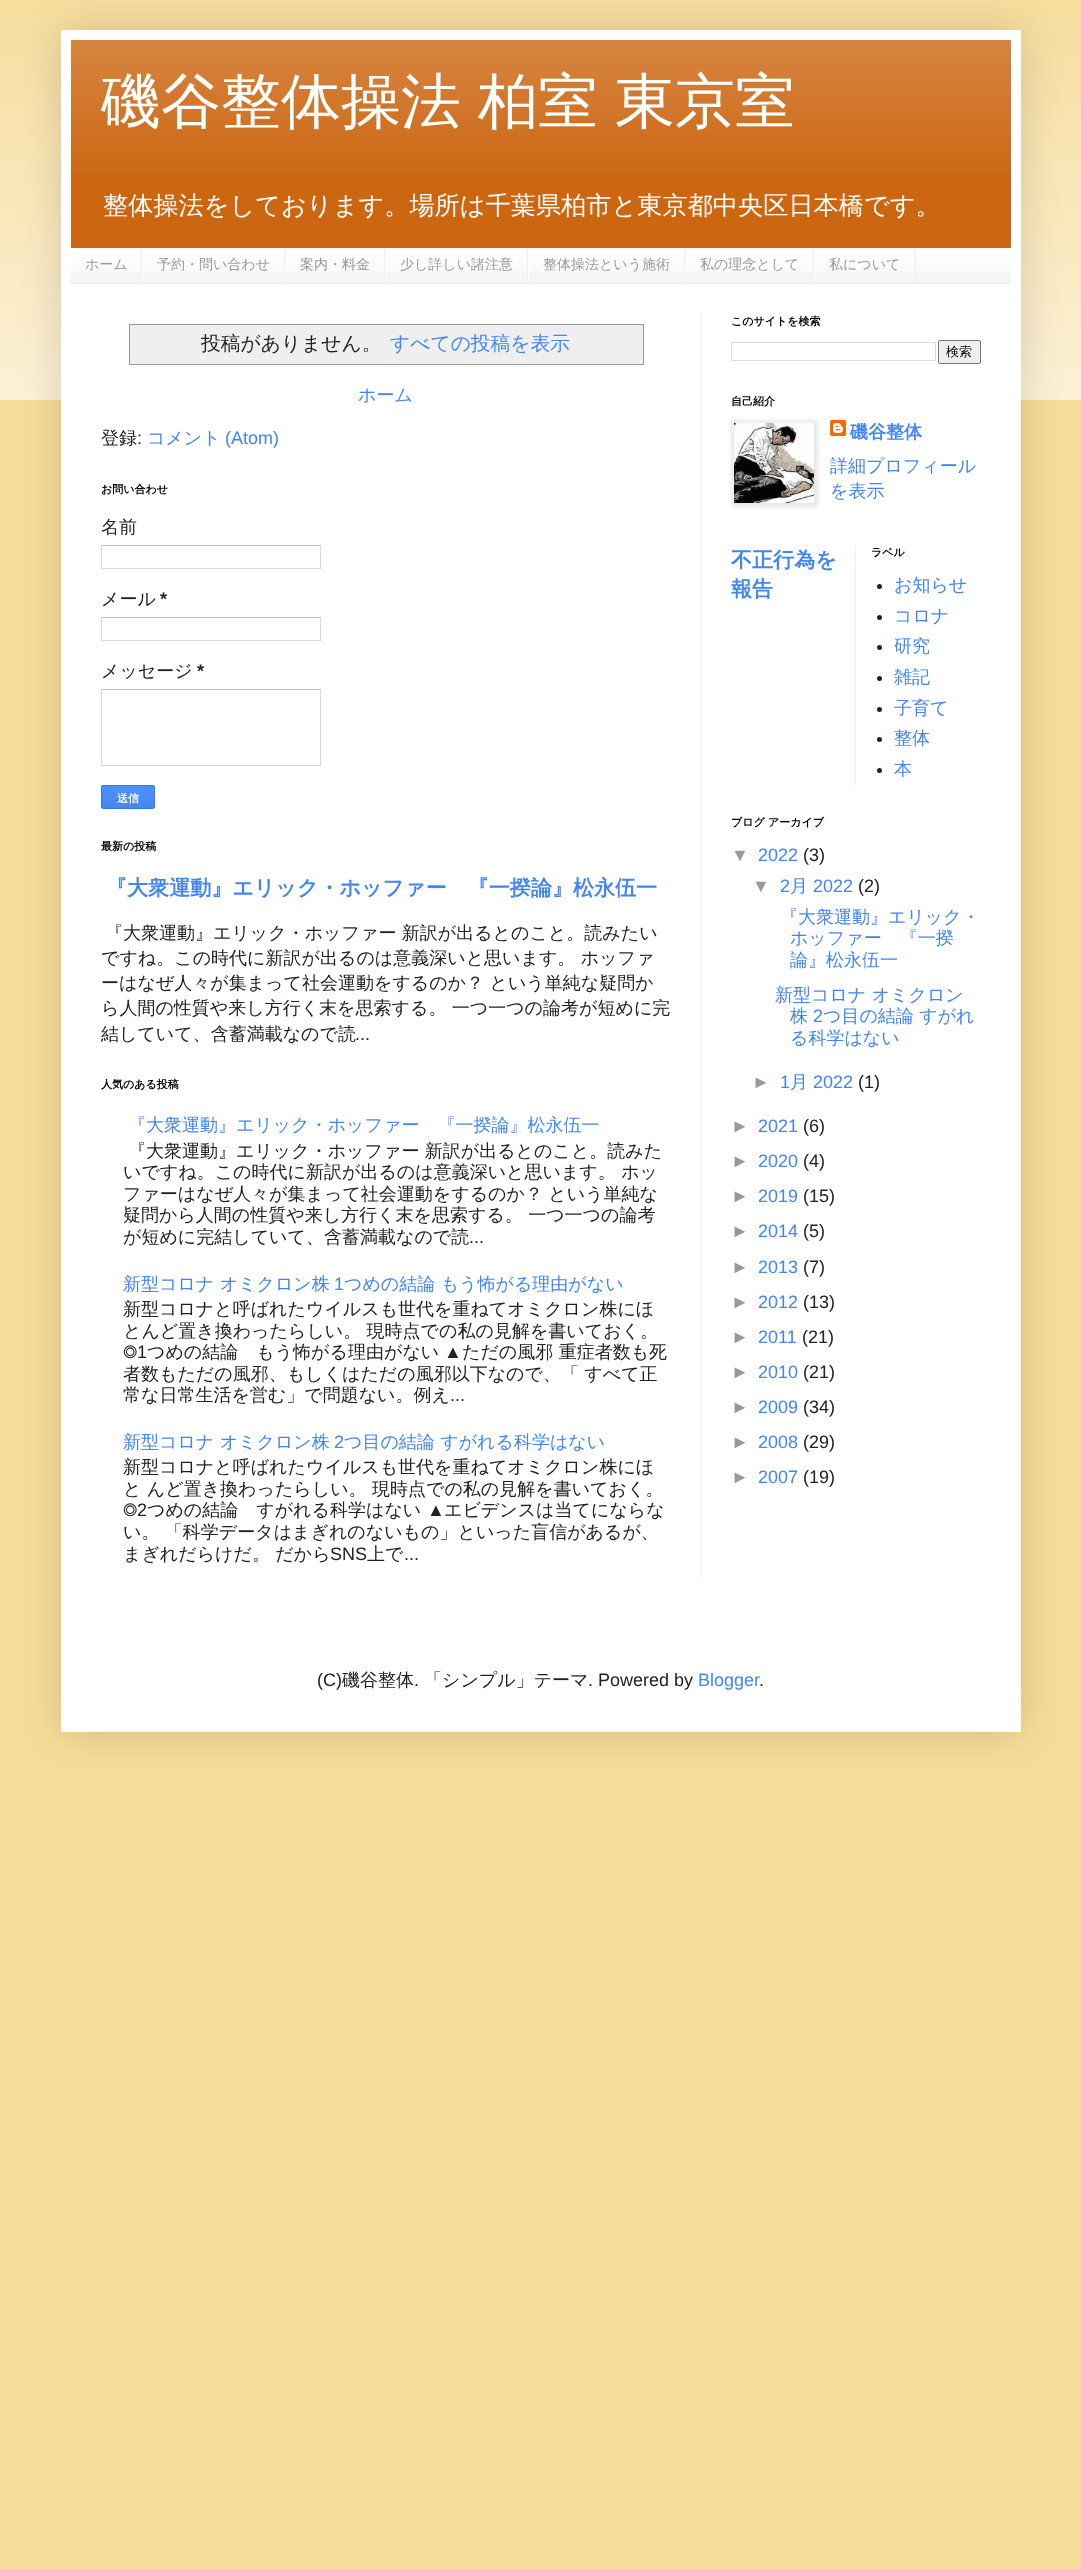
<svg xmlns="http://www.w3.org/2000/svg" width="1081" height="2569">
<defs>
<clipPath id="clip1"><rect x="101" y="785" width="54" height="24" rx="2"/></clipPath>
<linearGradient id="g1" gradientUnits="userSpaceOnUse" x1="128" y1="786" x2="128" y2="808"><stop offset="0" stop-color="#4d90fe"/><stop offset="1" stop-color="#4787ed"/></linearGradient>
</defs>
<rect width="100%" height="100%" fill="#f7dc99"/>
<image x="0" y="0" width="1081" height="400" href="media/1.png"/>
<rect x="61" y="30" width="960" height="1702" fill="#00000026" filter="blur(20px)"/>
<rect x="61" y="30" width="960" height="1702" fill="#fff"/>
<rect x="71" y="40" width="940" height="208" fill="#c61"/>
<image x="71" y="40" width="940" height="133" href="media/2.png"/>
<text x="101" y="122" word-spacing="-1" style="font-family:WenQuanYi Zen Hei;font-size:60px;font-weight:500;fill:#fff">磯谷整体操法 柏室 東京室</text>
<text x="103" y="214" style="font-family:WenQuanYi Zen Hei;font-size:25.2px;font-weight:500;fill:#fff">整体操法をしております。場所は千葉県柏市と東京都中央区日本橋です。</text>
<rect x="71" y="249" width="940" height="34" fill="#f5f5f5"/>
<image x="71" y="248" width="940" height="24" href="media/3.png"/>
<rect x="71" y="283" width="940" height="1" fill="#eee"/>
<rect x="141" y="248" width="1" height="35" fill="#eee"/>
<text x="85" y="269" style="font-family:WenQuanYi Zen Hei;font-size:14px;font-weight:500;fill:#999">ホーム</text>
<rect x="284" y="248" width="1" height="35" fill="#eee"/>
<rect x="142" y="259" width="1" height="24" fill="#fff"/>
<text x="157" y="269" style="font-family:WenQuanYi Zen Hei;font-size:14px;font-weight:500;fill:#999">予約・問い合わせ</text>
<rect x="384" y="248" width="1" height="35" fill="#eee"/>
<rect x="285" y="259" width="1" height="24" fill="#fff"/>
<text x="300" y="269" style="font-family:WenQuanYi Zen Hei;font-size:14px;font-weight:500;fill:#999">案内・料金</text>
<rect x="527" y="248" width="1" height="35" fill="#eee"/>
<rect x="385" y="259" width="1" height="24" fill="#fff"/>
<text x="400" y="269" style="font-family:WenQuanYi Zen Hei;font-size:14px;font-weight:500;fill:#999">少し詳しい諸注意</text>
<rect x="684" y="248" width="1" height="35" fill="#eee"/>
<rect x="528" y="259" width="1" height="24" fill="#fff"/>
<text x="543" y="269" style="font-family:WenQuanYi Zen Hei;font-size:14px;font-weight:500;fill:#999">整体操法という施術</text>
<rect x="813" y="248" width="1" height="35" fill="#eee"/>
<rect x="685" y="259" width="1" height="24" fill="#fff"/>
<text x="700" y="269" style="font-family:WenQuanYi Zen Hei;font-size:14px;font-weight:500;fill:#999">私の理念として</text>
<rect x="915" y="248" width="1" height="35" fill="#eee"/>
<rect x="814" y="259" width="1" height="24" fill="#fff"/>
<text x="829" y="269" style="font-family:WenQuanYi Zen Hei;font-size:14px;font-weight:500;fill:#999">私について</text>
<rect x="701" y="314" width="1" height="1264" fill="#eee"/>
<rect x="129.5" y="324.5" width="514" height="40" fill="none" stroke="#999"/>
<rect x="130" y="325" width="513" height="39" fill="#efefef"/>
<text x="201" y="350" style="font-family:WenQuanYi Zen Hei;font-size:19.75px;font-weight:500;fill:#222">投稿がありません。</text>
<text x="390" y="350" style="font-family:WenQuanYi Zen Hei;font-size:19.75px;font-weight:500;fill:#4285f4">すべての投稿を表示</text>
<text x="358" y="401" style="font-family:WenQuanYi Zen Hei;font-size:18px;font-weight:500;fill:#4285f4">ホーム</text>
<text x="101" y="444" style="font-family:WenQuanYi Zen Hei;font-size:18px;font-weight:500;fill:#222">登録</text>
<text x="137" y="444" style="font-family:Liberation Sans;font-size:18px;fill:#222">:</text>
<text x="147" y="444" style="font-family:WenQuanYi Zen Hei;font-size:18px;font-weight:500;fill:#4285f4">コメント</text>
<text x="225" y="444" style="font-family:Liberation Sans;font-size:18px;fill:#4285f4">(Atom)</text>
<text x="101" y="493" style="font-family:WenQuanYi Zen Hei;font-size:11px;font-weight:bold;fill:#000">お問い合わせ</text>
<text x="101" y="533" style="font-family:WenQuanYi Zen Hei;font-size:18px;font-weight:500;fill:#222">名前</text>
<rect x="101" y="545" width="220" height="1" fill="#c0c0c0"/>
<rect x="320" y="545" width="1" height="24" fill="#d9d9d9"/>
<rect x="101" y="568" width="220" height="1" fill="#d9d9d9"/>
<rect x="101" y="545" width="1" height="24" fill="#d9d9d9"/>
<text x="101" y="605" style="font-family:WenQuanYi Zen Hei;font-size:18px;font-weight:500;fill:#222">メール</text>
<text x="160" y="605" style="font-family:Liberation Sans;font-size:18px;font-weight:bold;fill:#222">*</text>
<rect x="101" y="617" width="220" height="1" fill="#c0c0c0"/>
<rect x="320" y="617" width="1" height="24" fill="#d9d9d9"/>
<rect x="101" y="640" width="220" height="1" fill="#d9d9d9"/>
<rect x="101" y="617" width="1" height="24" fill="#d9d9d9"/>
<text x="101" y="677" style="font-family:WenQuanYi Zen Hei;font-size:18px;font-weight:500;fill:#222">メッセージ</text>
<text x="197" y="677" style="font-family:Liberation Sans;font-size:18px;font-weight:bold;fill:#222">*</text>
<rect x="101" y="689" width="220" height="1" fill="#c0c0c0"/>
<rect x="320" y="689" width="1" height="77" fill="#d9d9d9"/>
<rect x="101" y="765" width="220" height="1" fill="#d9d9d9"/>
<rect x="101" y="689" width="1" height="77" fill="#d9d9d9"/>
<g clip-path="url(#clip1)">
<rect x="101" y="786" width="54" height="22" fill="url(#g1)"/>
</g>
<rect x="101.5" y="785.5" width="53" height="23" rx="1.5" fill="none" stroke="#3079ed"/>
<text x="117" y="802" style="font-family:WenQuanYi Zen Hei;font-size:11px;font-weight:bold;fill:#fff">送信</text>
<text x="101" y="850" style="font-family:WenQuanYi Zen Hei;font-size:11px;font-weight:bold;fill:#000">最新の投稿</text>
<text x="106" y="895" style="font-family:WenQuanYi Zen Hei;font-size:21.05px;font-weight:bold;fill:#4285f4">『大衆運動』エリック・ホッファー　『一揆論』松永伍一</text>
<text x="105" y="939" style="font-family:WenQuanYi Zen Hei;font-size:18px;font-weight:500;fill:#222">『大衆運動』エリック・ホッファー 新訳が出るとのこと。読みたい</text>
<text x="101" y="964" style="font-family:WenQuanYi Zen Hei;font-size:18px;font-weight:500;fill:#222">ですね。この時代に新訳が出るのは意義深いと思います。 ホッファ</text>
<text x="101" y="989" style="font-family:WenQuanYi Zen Hei;font-size:18px;font-weight:500;fill:#222">ーはなぜ人々が集まって社会運動をするのか？ という単純な疑問か</text>
<text x="101" y="1014" style="font-family:WenQuanYi Zen Hei;font-size:18px;font-weight:500;fill:#222">ら人間の性質や来し方行く末を思索する。 一つ一つの論考が短めに完</text>
<text x="101" y="1040" style="font-family:WenQuanYi Zen Hei;font-size:18px;font-weight:500;fill:#222">結していて、含蓄満載なので読</text>
<text x="355" y="1040" style="font-family:Liberation Sans;font-size:18px;fill:#222">...</text>
<text x="101" y="1088" style="font-family:WenQuanYi Zen Hei;font-size:11px;font-weight:bold;fill:#000">人気のある投稿</text>
<text x="128" y="1131" style="font-family:WenQuanYi Zen Hei;font-size:18px;font-weight:500;fill:#4285f4">『大衆運動』エリック・ホッファー　『一揆論』松永伍一</text>
<text x="128" y="1157" style="font-family:WenQuanYi Zen Hei;font-size:18px;font-weight:500;fill:#222">『大衆運動』エリック・ホッファー 新訳が出るとのこと。読みた</text>
<text x="123" y="1178" style="font-family:WenQuanYi Zen Hei;font-size:18px;font-weight:500;fill:#222">いですね。この時代に新訳が出るのは意義深いと思います。 ホッ</text>
<text x="123" y="1200" style="font-family:WenQuanYi Zen Hei;font-size:18px;font-weight:500;fill:#222">ファーはなぜ人々が集まって社会運動をするのか？ という単純な</text>
<text x="123" y="1221" style="font-family:WenQuanYi Zen Hei;font-size:18px;font-weight:500;fill:#222">疑問から人間の性質や来し方行く末を思索する。 一つ一つの論考</text>
<text x="123" y="1243" style="font-family:WenQuanYi Zen Hei;font-size:18px;font-weight:500;fill:#222">が短めに完結していて、含蓄満載なので読</text>
<text x="469" y="1243" style="font-family:Liberation Sans;font-size:18px;fill:#222">...</text>
<text x="123" y="1290" style="font-family:WenQuanYi Zen Hei;font-size:18px;font-weight:500;fill:#4285f4">新型コロナ オミクロン株</text>
<text x="334" y="1290" style="font-family:Liberation Sans;font-size:18px;fill:#4285f4">1</text>
<text x="344" y="1290" style="font-family:WenQuanYi Zen Hei;font-size:18px;font-weight:500;fill:#4285f4">つめの結論 もう怖がる理由がない</text>
<text x="123" y="1315" style="font-family:WenQuanYi Zen Hei;font-size:18px;font-weight:500;fill:#222">新型コロナと呼ばれたウイルスも世代を重ねてオミクロン株にほ</text>
<text x="123" y="1337" style="font-family:WenQuanYi Zen Hei;font-size:18px;font-weight:500;fill:#222">とんど置き換わったらしい。 現時点での私の見解を書いておく。</text>
<text x="123" y="1358" style="font-family:FreeSans;font-size:18px;fill:#222">◎</text>
<text x="137" y="1358" style="font-family:Liberation Sans;font-size:18px;fill:#222">1</text>
<text x="147" y="1358" style="font-family:WenQuanYi Zen Hei;font-size:18px;font-weight:500;fill:#222">つめの結論　もう怖がる理由がない</text>
<text x="444" y="1358" style="font-family:Liberation Sans;font-size:18px;fill:#222">▲</text>
<text x="462" y="1358" style="font-family:WenQuanYi Zen Hei;font-size:18px;font-weight:500;fill:#222">ただの風邪 重症者数も死</text>
<text x="123" y="1380" style="font-family:WenQuanYi Zen Hei;font-size:18px;font-weight:500;fill:#222">者数もただの風邪、もしくはただの風邪以下なので、「 すべて正</text>
<text x="123" y="1401" style="font-family:WenQuanYi Zen Hei;font-size:18px;font-weight:500;fill:#222">常な日常生活を営む」で問題ない。例え</text>
<text x="450" y="1401" style="font-family:Liberation Sans;font-size:18px;fill:#222">...</text>
<text x="123" y="1448" style="font-family:WenQuanYi Zen Hei;font-size:18px;font-weight:500;fill:#4285f4">新型コロナ オミクロン株</text>
<text x="334" y="1448" style="font-family:Liberation Sans;font-size:18px;fill:#4285f4">2</text>
<text x="344" y="1448" style="font-family:WenQuanYi Zen Hei;font-size:18px;font-weight:500;fill:#4285f4">つ目の結論 すがれる科学はない</text>
<text x="123" y="1473" style="font-family:WenQuanYi Zen Hei;font-size:18px;font-weight:500;fill:#222">新型コロナと呼ばれたウイルスも世代を重ねてオミクロン株にほ</text>
<text x="123" y="1495" style="font-family:WenQuanYi Zen Hei;font-size:18px;font-weight:500;fill:#222">と んど置き換わったらしい。 現時点での私の見解を書いておく。</text>
<text x="123" y="1516" style="font-family:FreeSans;font-size:18px;fill:#222">◎</text>
<text x="137" y="1516" style="font-family:Liberation Sans;font-size:18px;fill:#222">2</text>
<text x="147" y="1516" style="font-family:WenQuanYi Zen Hei;font-size:18px;font-weight:500;fill:#222">つめの結論　すがれる科学はない</text>
<text x="427" y="1516" style="font-family:Liberation Sans;font-size:18px;fill:#222">▲</text>
<text x="444" y="1516" style="font-family:WenQuanYi Zen Hei;font-size:18px;font-weight:500;fill:#222">エビデンスは当てにならな</text>
<text x="123" y="1538" style="font-family:WenQuanYi Zen Hei;font-size:18px;font-weight:500;fill:#222">い。 「科学データはまぎれのないもの」といった盲信があるが、</text>
<text x="123" y="1560" style="font-family:WenQuanYi Zen Hei;font-size:18px;font-weight:500;fill:#222">まぎれだらけだ。 だから</text>
<text x="330" y="1560" style="font-family:Liberation Sans;font-size:18px;fill:#222">SNS</text>
<text x="367" y="1560" style="font-family:WenQuanYi Zen Hei;font-size:18px;font-weight:500;fill:#222">上で</text>
<text x="404" y="1560" style="font-family:Liberation Sans;font-size:18px;fill:#222">...</text>
<text x="731" y="325" style="font-family:WenQuanYi Zen Hei;font-size:11px;font-weight:bold;fill:#000">このサイトを検索</text>
<rect x="731.5" y="342.5" width="204" height="18" fill="none" stroke="#ddd"/>
<rect x="938.5" y="340.5" width="42" height="23" rx="1.5" fill="#efefef" stroke="#767676"/>
<text x="946" y="356" style="font-family:WenQuanYi Zen Hei;font-size:13px;font-weight:500;fill:#000">検索</text>
<text x="731" y="405" style="font-family:WenQuanYi Zen Hei;font-size:11px;font-weight:bold;fill:#000">自己紹介</text>
<rect x="732" y="421" width="86" height="86" fill="#0000001a" filter="blur(2.5px)"/>
<rect x="731.5" y="420.5" width="85" height="85" fill="none" stroke="#eee"/>
<image x="734" y="423" width="80" height="80" href="media/4.png"/>
<image x="830" y="420" width="16" height="16" href="media/5.png"/>
<text x="850" y="438" style="font-family:WenQuanYi Zen Hei;font-size:18px;font-weight:bold;fill:#4285f4">磯谷整体</text>
<text x="830" y="472" style="font-family:WenQuanYi Zen Hei;font-size:18px;font-weight:500;fill:#4285f4">詳細プロフィール</text>
<text x="830" y="497" style="font-family:WenQuanYi Zen Hei;font-size:18px;font-weight:500;fill:#4285f4">を表示</text>
<text x="731" y="567" style="font-family:WenQuanYi Zen Hei;font-size:21.05px;font-weight:bold;fill:#4285f4">不正行為を</text>
<text x="731" y="596" style="font-family:WenQuanYi Zen Hei;font-size:21.05px;font-weight:bold;fill:#4285f4">報告</text>
<rect x="855" y="545" width="1" height="240" fill="#eee"/>
<text x="871" y="556" style="font-family:WenQuanYi Zen Hei;font-size:11px;font-weight:bold;fill:#000">ラベル</text>
<circle cx="879.5" cy="586.5" r="2.5" fill="#222"/>
<text x="894" y="591" style="font-family:WenQuanYi Zen Hei;font-size:18px;font-weight:500;fill:#4285f4">お知らせ</text>
<circle cx="879.5" cy="617.5" r="2.5" fill="#222"/>
<text x="894" y="622" style="font-family:WenQuanYi Zen Hei;font-size:18px;font-weight:500;fill:#4285f4">コロナ</text>
<circle cx="879.5" cy="647.5" r="2.5" fill="#222"/>
<text x="894" y="652" style="font-family:WenQuanYi Zen Hei;font-size:18px;font-weight:500;fill:#4285f4">研究</text>
<circle cx="879.5" cy="678.5" r="2.5" fill="#222"/>
<text x="894" y="683" style="font-family:WenQuanYi Zen Hei;font-size:18px;font-weight:500;fill:#4285f4">雑記</text>
<circle cx="879.5" cy="709.5" r="2.5" fill="#222"/>
<text x="894" y="714" style="font-family:WenQuanYi Zen Hei;font-size:18px;font-weight:500;fill:#4285f4">子育て</text>
<circle cx="879.5" cy="739.5" r="2.5" fill="#222"/>
<text x="894" y="744" style="font-family:WenQuanYi Zen Hei;font-size:18px;font-weight:500;fill:#4285f4">整体</text>
<circle cx="879.5" cy="770.5" r="2.5" fill="#222"/>
<text x="894" y="775" style="font-family:WenQuanYi Zen Hei;font-size:18px;font-weight:500;fill:#4285f4">本</text>
<text x="731" y="826" style="font-family:WenQuanYi Zen Hei;font-size:11px;font-weight:bold;fill:#000">ブログ アーカイブ</text>
<text x="731" y="861" style="font-family:Liberation Sans;font-size:18px;fill:#999">▼</text>
<text x="758" y="861" style="font-family:Liberation Sans;font-size:18px;fill:#4285f4">2022</text>
<text x="803" y="861" style="font-family:Liberation Sans;font-size:18px;fill:#222">(3)</text>
<text x="752" y="892" style="font-family:Liberation Sans;font-size:18px;fill:#999">▼</text>
<text x="780" y="892" style="font-family:Liberation Sans;font-size:18px;fill:#4285f4">2</text>
<text x="790" y="892" style="font-family:WenQuanYi Zen Hei;font-size:18px;font-weight:500;fill:#4285f4">月</text>
<text x="813" y="892" style="font-family:Liberation Sans;font-size:18px;fill:#4285f4">2022</text>
<text x="858" y="892" style="font-family:Liberation Sans;font-size:18px;fill:#222">(2)</text>
<text x="780" y="923" style="font-family:WenQuanYi Zen Hei;font-size:18px;font-weight:500;fill:#4285f4">『大衆運動』エリック・</text>
<text x="790" y="944" style="font-family:WenQuanYi Zen Hei;font-size:18px;font-weight:500;fill:#4285f4">ホッファー　『一揆</text>
<text x="790" y="966" style="font-family:WenQuanYi Zen Hei;font-size:18px;font-weight:500;fill:#4285f4">論』松永伍一</text>
<text x="775" y="1001" style="font-family:WenQuanYi Zen Hei;font-size:18px;font-weight:500;fill:#4285f4">新型コロナ オミクロン</text>
<text x="790" y="1022" style="font-family:WenQuanYi Zen Hei;font-size:18px;font-weight:500;fill:#4285f4">株</text>
<text x="813" y="1022" style="font-family:Liberation Sans;font-size:18px;fill:#4285f4">2</text>
<text x="823" y="1022" style="font-family:WenQuanYi Zen Hei;font-size:18px;font-weight:500;fill:#4285f4">つ目の結論 すがれ</text>
<text x="790" y="1044" style="font-family:WenQuanYi Zen Hei;font-size:18px;font-weight:500;fill:#4285f4">る科学はない</text>
<text x="752" y="1088" style="font-family:Liberation Sans;font-size:18px;fill:#999">►</text>
<text x="780" y="1088" style="font-family:Liberation Sans;font-size:18px;fill:#4285f4">1</text>
<text x="790" y="1088" style="font-family:WenQuanYi Zen Hei;font-size:18px;font-weight:500;fill:#4285f4">月</text>
<text x="813" y="1088" style="font-family:Liberation Sans;font-size:18px;fill:#4285f4">2022</text>
<text x="858" y="1088" style="font-family:Liberation Sans;font-size:18px;fill:#222">(1)</text>
<text x="731" y="1132" style="font-family:Liberation Sans;font-size:18px;fill:#999">►</text>
<text x="758" y="1132" style="font-family:Liberation Sans;font-size:18px;fill:#4285f4">2021</text>
<text x="803" y="1132" style="font-family:Liberation Sans;font-size:18px;fill:#222">(6)</text>
<text x="731" y="1167" style="font-family:Liberation Sans;font-size:18px;fill:#999">►</text>
<text x="758" y="1167" style="font-family:Liberation Sans;font-size:18px;fill:#4285f4">2020</text>
<text x="803" y="1167" style="font-family:Liberation Sans;font-size:18px;fill:#222">(4)</text>
<text x="731" y="1202" style="font-family:Liberation Sans;font-size:18px;fill:#999">►</text>
<text x="758" y="1202" style="font-family:Liberation Sans;font-size:18px;fill:#4285f4">2019</text>
<text x="803" y="1202" style="font-family:Liberation Sans;font-size:18px;fill:#222">(15)</text>
<text x="731" y="1237" style="font-family:Liberation Sans;font-size:18px;fill:#999">►</text>
<text x="758" y="1237" style="font-family:Liberation Sans;font-size:18px;fill:#4285f4">2014</text>
<text x="803" y="1237" style="font-family:Liberation Sans;font-size:18px;fill:#222">(5)</text>
<text x="731" y="1273" style="font-family:Liberation Sans;font-size:18px;fill:#999">►</text>
<text x="758" y="1273" style="font-family:Liberation Sans;font-size:18px;fill:#4285f4">2013</text>
<text x="803" y="1273" style="font-family:Liberation Sans;font-size:18px;fill:#222">(7)</text>
<text x="731" y="1308" style="font-family:Liberation Sans;font-size:18px;fill:#999">►</text>
<text x="758" y="1308" style="font-family:Liberation Sans;font-size:18px;fill:#4285f4">2012</text>
<text x="803" y="1308" style="font-family:Liberation Sans;font-size:18px;fill:#222">(13)</text>
<text x="731" y="1343" style="font-family:Liberation Sans;font-size:18px;fill:#999">►</text>
<text x="758" y="1343" style="font-family:Liberation Sans;font-size:18px;fill:#4285f4">2011</text>
<text x="802" y="1343" style="font-family:Liberation Sans;font-size:18px;fill:#222">(21)</text>
<text x="731" y="1378" style="font-family:Liberation Sans;font-size:18px;fill:#999">►</text>
<text x="758" y="1378" style="font-family:Liberation Sans;font-size:18px;fill:#4285f4">2010</text>
<text x="803" y="1378" style="font-family:Liberation Sans;font-size:18px;fill:#222">(21)</text>
<text x="731" y="1413" style="font-family:Liberation Sans;font-size:18px;fill:#999">►</text>
<text x="758" y="1413" style="font-family:Liberation Sans;font-size:18px;fill:#4285f4">2009</text>
<text x="803" y="1413" style="font-family:Liberation Sans;font-size:18px;fill:#222">(34)</text>
<text x="731" y="1448" style="font-family:Liberation Sans;font-size:18px;fill:#999">►</text>
<text x="758" y="1448" style="font-family:Liberation Sans;font-size:18px;fill:#4285f4">2008</text>
<text x="803" y="1448" style="font-family:Liberation Sans;font-size:18px;fill:#222">(29)</text>
<text x="731" y="1483" style="font-family:Liberation Sans;font-size:18px;fill:#999">►</text>
<text x="758" y="1483" style="font-family:Liberation Sans;font-size:18px;fill:#4285f4">2007</text>
<text x="803" y="1483" style="font-family:Liberation Sans;font-size:18px;fill:#222">(19)</text>
<text x="317" y="1686" style="font-family:Liberation Sans;font-size:18px;fill:#222">(C)</text>
<text x="342" y="1686" style="font-family:WenQuanYi Zen Hei;font-size:18px;font-weight:500;fill:#222">磯谷整体</text>
<text x="414" y="1686" style="font-family:Liberation Sans;font-size:18px;fill:#222">.</text>
<text x="424" y="1686" style="font-family:WenQuanYi Zen Hei;font-size:18px;font-weight:500;fill:#222">「シンプル」テーマ</text>
<text x="588" y="1686" style="font-family:Liberation Sans;font-size:18px;fill:#222">. Powered by</text>
<text x="698" y="1686" style="font-family:Liberation Sans;font-size:18px;fill:#4285f4">Blogger</text>
<text x="759" y="1686" style="font-family:Liberation Sans;font-size:18px;fill:#222">.</text>
</svg>
